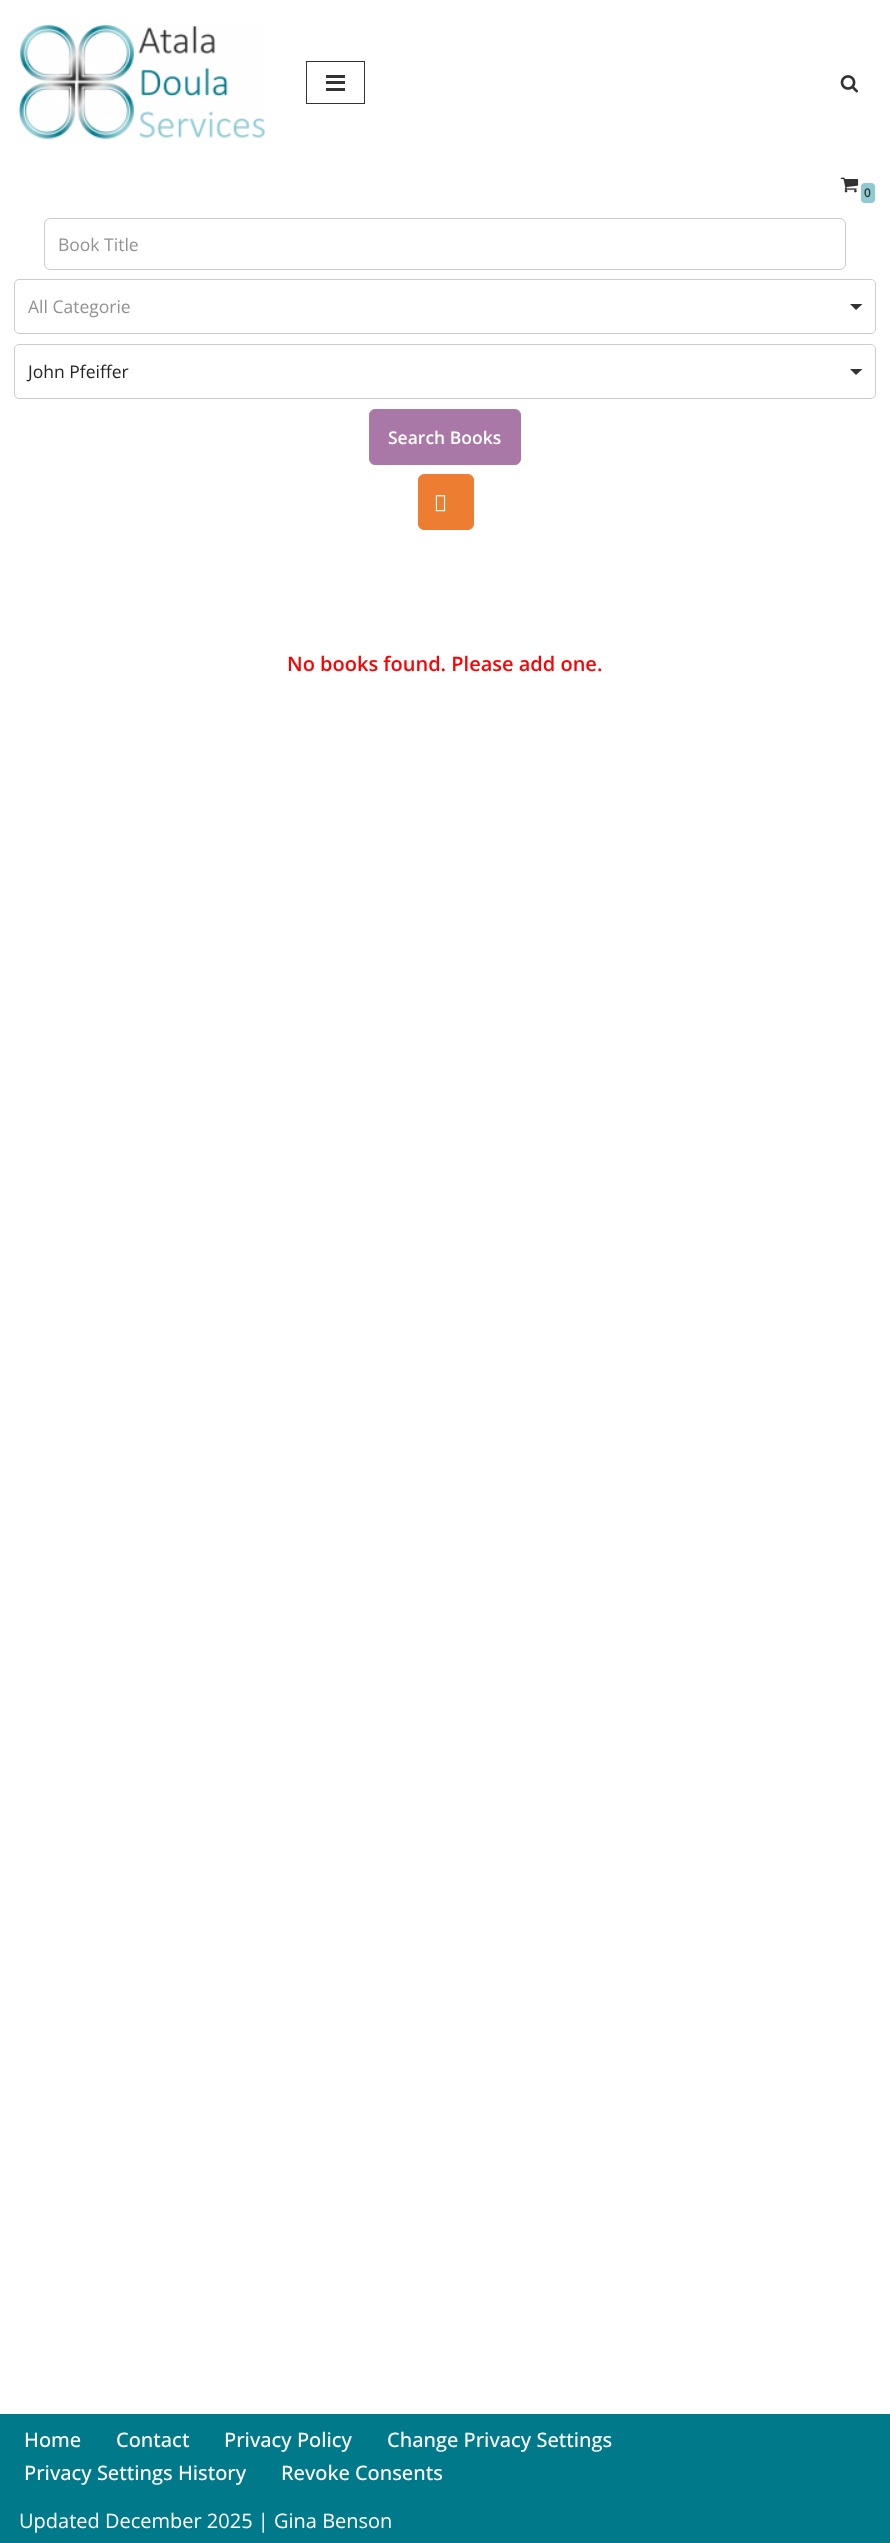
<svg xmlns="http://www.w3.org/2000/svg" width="890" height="2543">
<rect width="100%" height="100%" fill="#fff"/>
<image x="18" y="24" width="248" height="115" href="media/1.png"/>
<rect x="306.5" y="61.5" width="58" height="42" fill="none" stroke="#333"/>
<rect x="326" y="75" width="19" height="3" fill="#333"/>
<rect x="326" y="81" width="19" height="3" fill="#333"/>
<rect x="326" y="88" width="19" height="3" fill="#333"/>
<image x="840" y="75" width="19" height="18" href="media/2.png"/>
<image x="840" y="177" width="19" height="16" href="media/3.png"/>
<rect x="861" y="183" width="14" height="20" rx="4" fill="#8ccbd2"/>
<text x="864" y="197" style="font-family:Open Sans;font-size:12px;font-weight:600;fill:#333">0</text>
<rect x="44.5" y="218.5" width="801" height="51" rx="5.5" fill="none" stroke="#ccc"/>
<text x="58" y="251" style="font-family:Open Sans;font-size:17.5px;fill:#929292">Book Title</text>
<rect x="14.5" y="279.5" width="861" height="54" rx="4.5" fill="none" stroke="#ccc"/>
<text x="28" y="313" style="font-family:Open Sans;font-size:17.5px;fill:#929292">All Categorie</text>
<path d="M850 304h12.5l-6.5 6z" fill="#333"/>
<rect x="14.5" y="344.5" width="861" height="54" rx="4.5" fill="none" stroke="#ccc"/>
<text x="28" y="378" style="font-family:Open Sans;font-size:17.5px;fill:#242424">John Pfeiffer</text>
<path d="M850 369h12.5l-6.5 6z" fill="#333"/>
<rect x="369.5" y="409.5" width="151" height="55" rx="5.5" fill="#aa78a6" stroke="#aa78a6"/>
<text x="388" y="444" style="font-family:Open Sans;font-size:17.5px;font-weight:600;fill:#fff">Search Books</text>
<rect x="418.5" y="474.5" width="55" height="55" rx="5.5" fill="#ed7d31" stroke="#ed7d31"/>
<image x="435" y="495" width="11" height="17" href="media/4.png"/>
<text x="287" y="671" style="font-family:Open Sans;font-size:20px;font-weight:600;fill:#f00">No books found. Please add one.</text>
<rect y="2414" width="890" height="129" fill="#00798b"/>
<text x="24" y="2447" style="font-family:Open Sans;font-size:20px;font-weight:500;fill:#fff">Home</text>
<text x="116" y="2447" style="font-family:Open Sans;font-size:20px;font-weight:500;fill:#fff">Contact</text>
<text x="224" y="2447" style="font-family:Open Sans;font-size:20px;font-weight:500;fill:#fff">Privacy Policy</text>
<text x="387" y="2447" style="font-family:Open Sans;font-size:20px;font-weight:500;fill:#fff">Change Privacy Settings</text>
<text x="24" y="2480" style="font-family:Open Sans;font-size:20px;font-weight:500;fill:#fff">Privacy Settings History</text>
<text x="281" y="2480" style="font-family:Open Sans;font-size:20px;font-weight:500;fill:#fff">Revoke Consents</text>
<text x="19" y="2528" style="font-family:Open Sans;font-size:20px;fill:#fff">Updated December 2025 | Gina Benson</text>
</svg>
